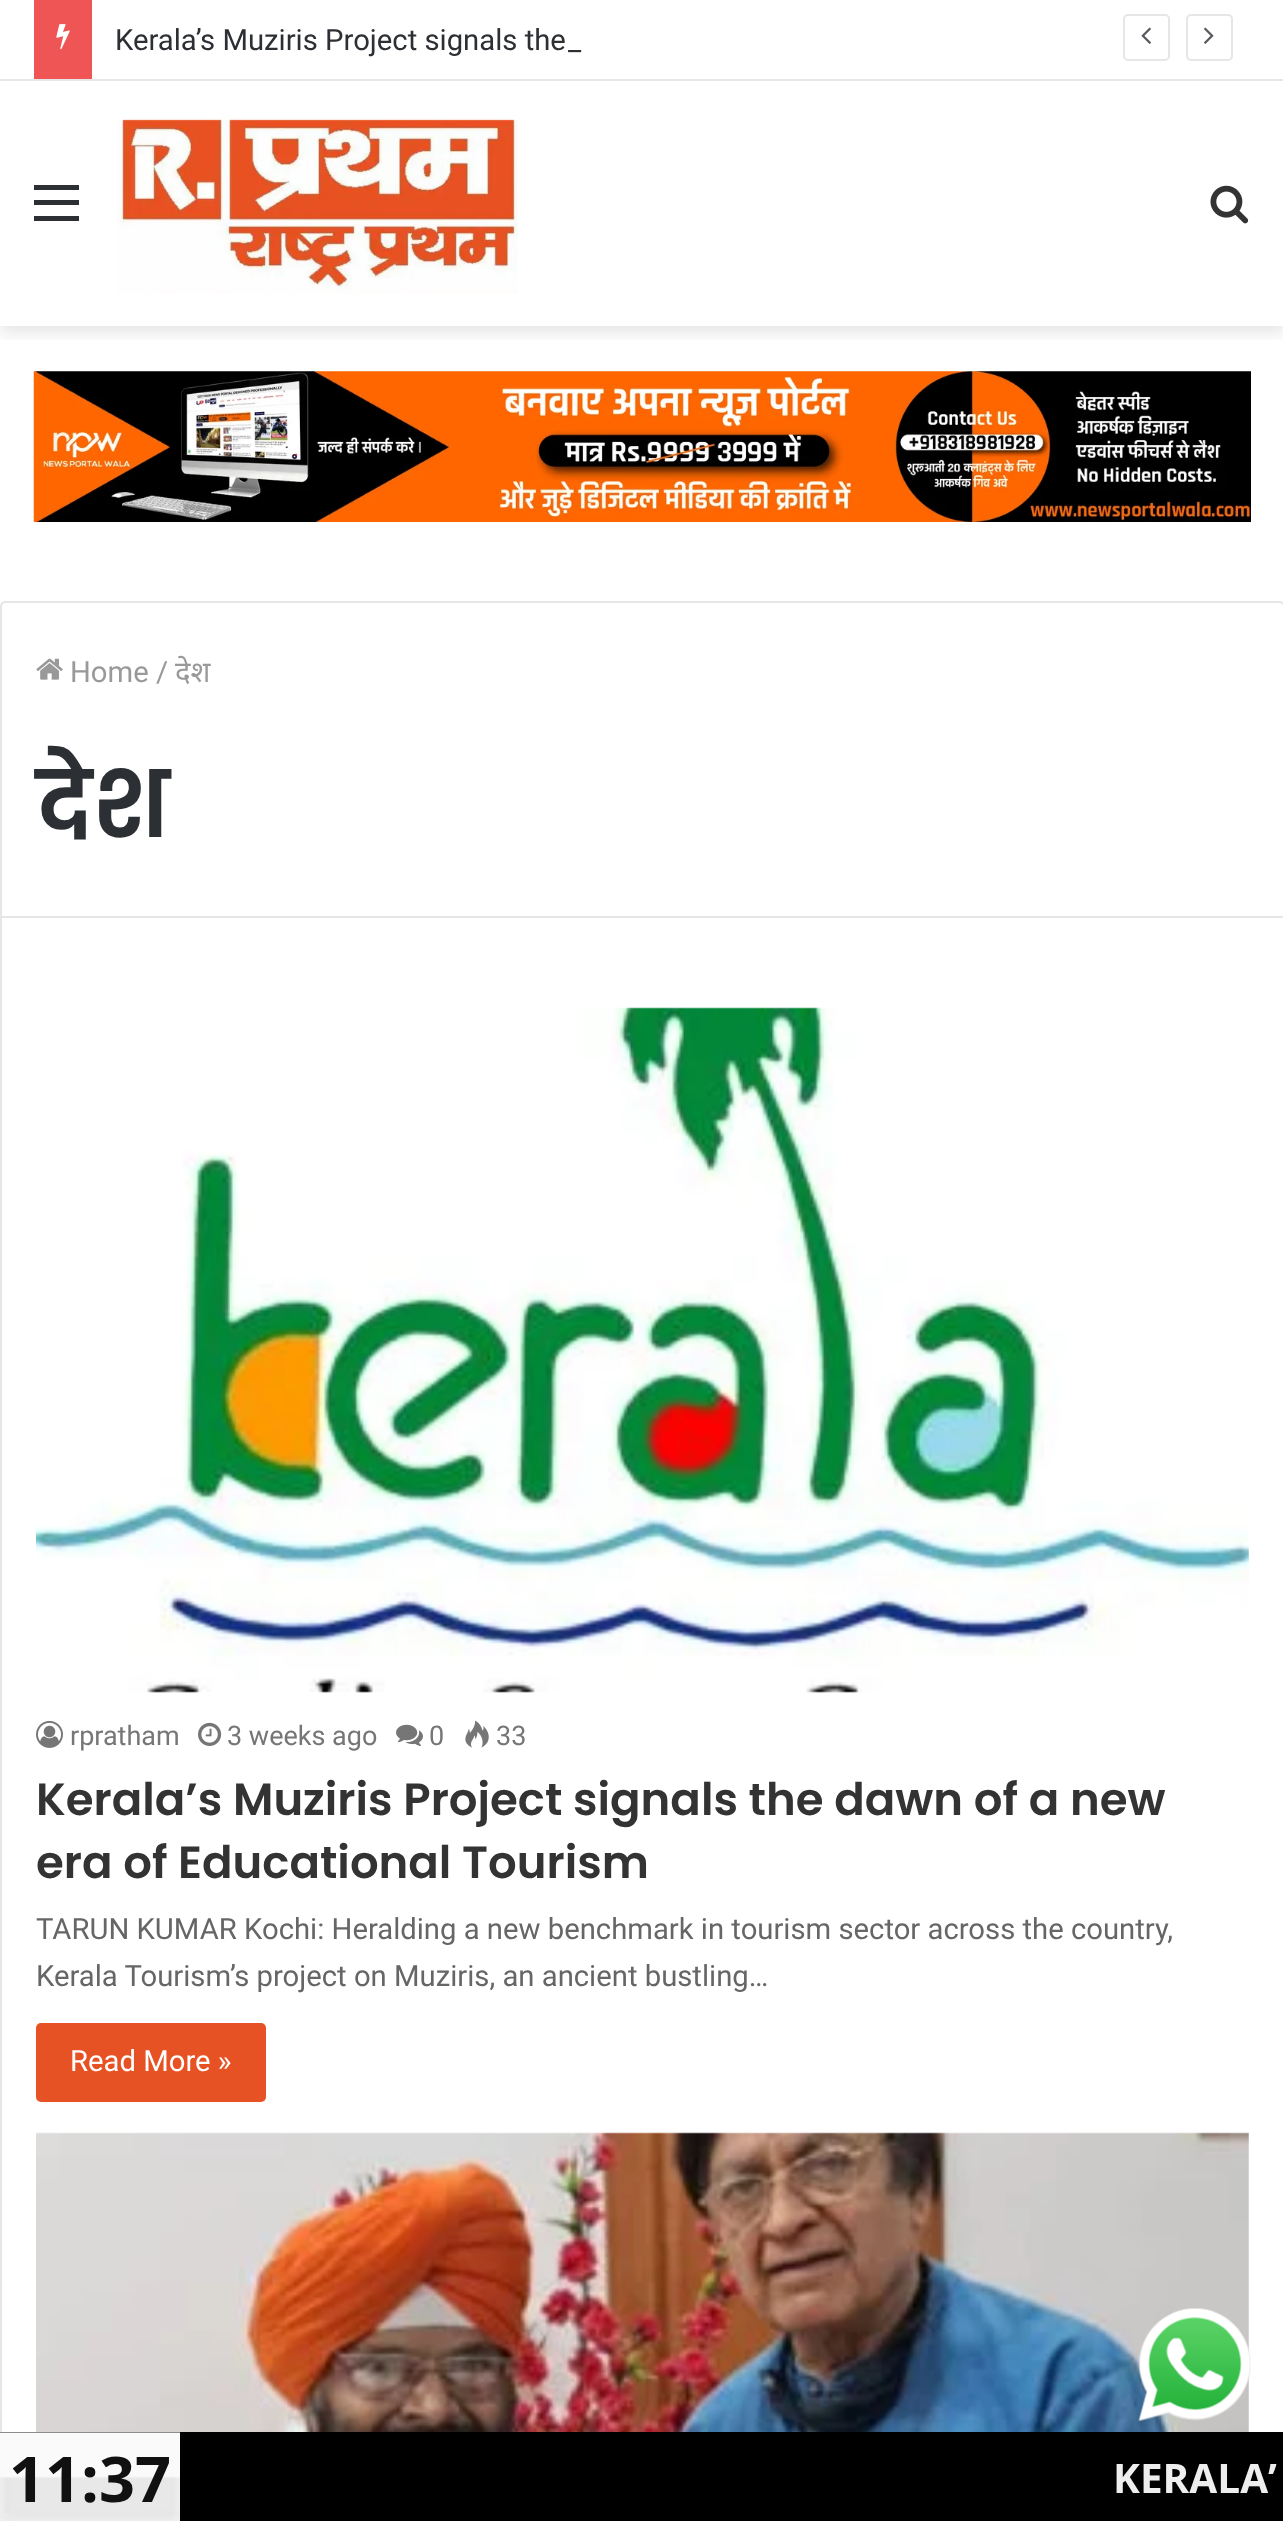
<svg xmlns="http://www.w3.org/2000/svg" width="1283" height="2521">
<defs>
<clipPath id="clip1"><rect x="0" y="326" width="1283" height="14"/></clipPath>
</defs>
<rect width="100%" height="100%" fill="#fff"/>
<g clip-path="url(#clip1)">
<rect y="88" width="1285" height="245" fill="#0000001a" filter="blur(8px)"/>
</g>
<rect x="8" y="78" width="1269" height="1" fill="#fff"/>
<rect y="79" width="1283" height="2" fill="#e6e6e6"/>
<rect x="34" width="58" height="79" fill="#f05555"/>
<image x="56" y="24" width="14" height="26" href="media/1.png"/>
<text x="115" y="50" style="font-family:Roboto;font-size:29.25px;fill:#2c2f34">Kerala’s Muziris Project signals the</text>
<text x="568" y="50" style="font-family:Roboto;font-size:29.25px;fill:#2c2f34">_</text>
<rect x="1124" y="15" width="45" height="45" rx="4" fill="none" stroke="#e6e6e6" stroke-width="2"/>
<image x="1141" y="27" width="10" height="17" href="media/2.png"/>
<rect x="1187" y="15" width="45" height="45" rx="4" fill="none" stroke="#e6e6e6" stroke-width="2"/>
<image x="1204" y="27" width="10" height="17" href="media/3.png"/>
<rect x="34" y="200" width="45" height="5" fill="#2c2f34"/>
<rect x="34" y="185" width="45" height="5" fill="#2c2f34"/>
<rect x="34" y="216" width="45" height="5" fill="#2c2f34"/>
<image x="117" y="119" width="401" height="175" href="media/4.png"/>
<image x="1210" y="185" width="39" height="39" href="media/5.png"/>
<image x="33" y="371" width="1218" height="151" href="media/6.png"/>
<path d="M5 602h1275c2 0 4 2 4 4v311h-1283v-311c0-2 2-4 4-4z" fill="none" stroke="#e6e6e6" stroke-width="2"/>
<image x="36" y="658" width="27" height="22" href="media/7.png"/>
<text x="70" y="682" style="font-family:Roboto;font-size:29.25px;fill:#999">Home</text>
<text x="156" y="682" style="font-family:Roboto;font-size:29.25px;fill:#999">/</text>
<text x="175" y="682" style="font-family:Noto Sans;font-size:29.25px;fill:#999">देश</text>
<text x="36" y="837" style="font-family:Poppins;font-size:92px;font-weight:600;fill:#2c2f34">देश</text>
<rect y="918" width="2" height="1514" fill="#e6e6e6"/>
<image x="36" y="1007" width="1213" height="686" href="media/8.png"/>
<image x="36" y="1720" width="27" height="28" href="media/9.png"/>
<text x="70" y="1745" style="font-family:Roboto;font-size:27px;fill:#767676">rpratham</text>
<image x="198" y="1722" width="24" height="24" href="media/10.png"/>
<text x="227" y="1745" style="font-family:Roboto;font-size:27px;fill:#767676">3 weeks ago</text>
<image x="396" y="1724" width="27" height="22" href="media/11.png"/>
<text x="429" y="1745" style="font-family:Roboto;font-size:27px;fill:#767676">0</text>
<image x="465" y="1720" width="24" height="28" href="media/12.png"/>
<text x="496" y="1745" style="font-family:Roboto;font-size:27px;fill:#767676">33</text>
<text x="36" y="1815" style="font-family:Poppins;font-size:45px;font-weight:600;fill:#333">Kerala’s Muziris Project signals the dawn of a new</text>
<text x="36" y="1878" style="font-family:Poppins;font-size:45px;font-weight:600;fill:#333">era of Educational Tourism</text>
<text x="36" y="1939" style="font-family:Roboto;font-size:29.25px;fill:#666">TARUN KUMAR Kochi: Heralding a new benchmark in tourism sector across the country,</text>
<text x="36" y="1986" style="font-family:Roboto;font-size:29.25px;fill:#666">Kerala Tourism’s project on Muziris, an ancient bustling…</text>
<rect x="36" y="2023" width="230" height="79" rx="5" fill="#e75224"/>
<text x="70" y="2071" style="font-family:Roboto;font-size:29.25px;fill:#fff">Read More »</text>
<image x="36" y="2132" width="1213" height="300" href="media/13.png"/>
<image x="1138" y="2308" width="113" height="114" href="media/14.png"/>
<rect y="2432" width="1283" height="89" fill="#000"/>
<image x="0" y="2432" width="180" height="89" href="media/15.png"/>
<text x="9" y="2502" style="font-family:Open Sans;font-size:63px;font-weight:bold;fill:#111">11:37</text>
<text x="1113" y="2493" style="font-family:Open Sans;font-size:40.5px;font-weight:bold;fill:#eee">KERALA’</text>
</svg>
